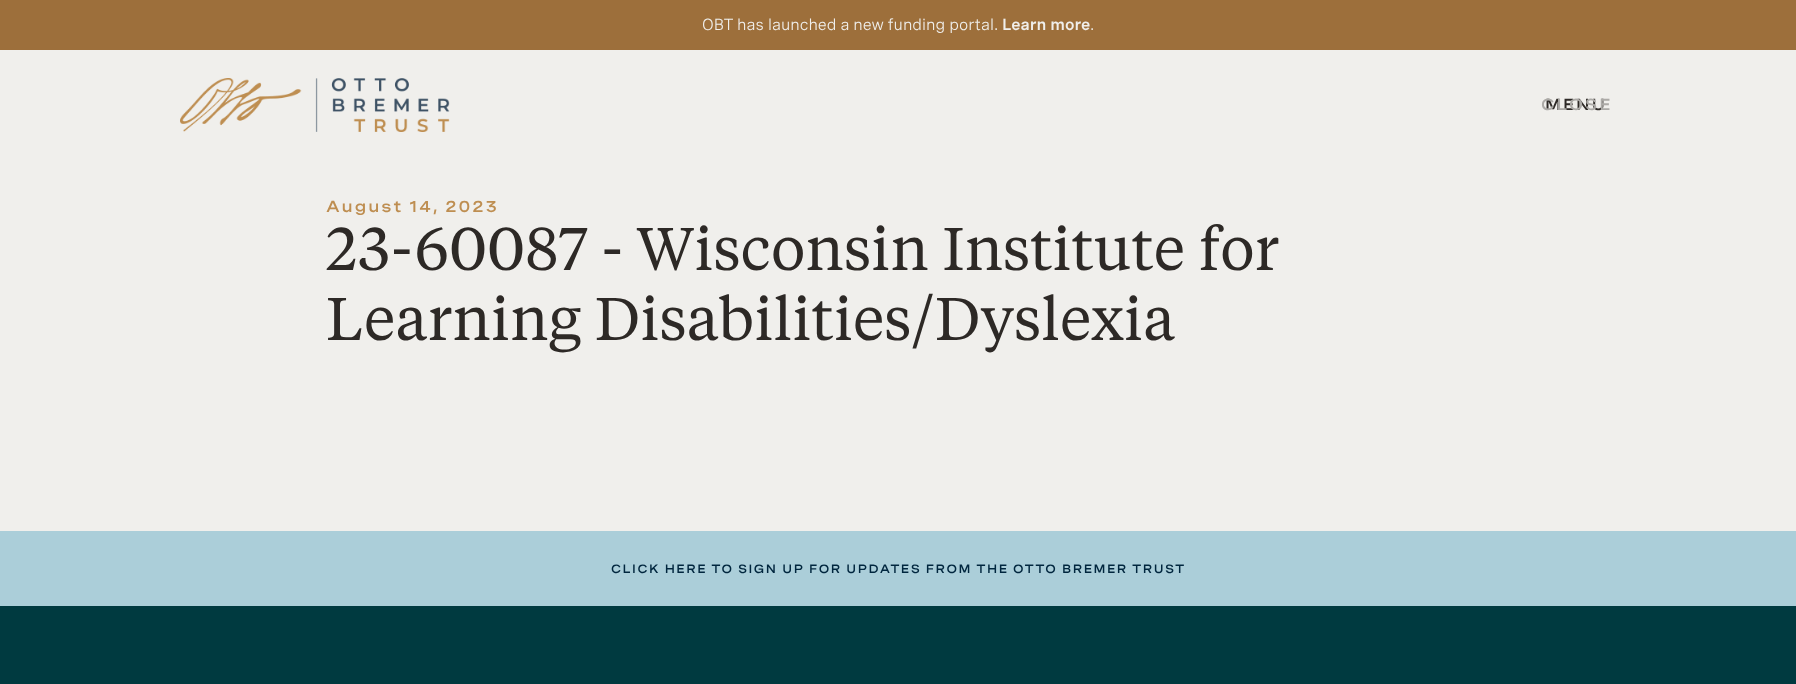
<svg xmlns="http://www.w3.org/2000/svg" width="1796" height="684">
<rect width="100%" height="100%" fill="#003a40"/>
<rect width="1796" height="50" fill="#9d6f3b"/>
<text x="702" y="30" style="font-family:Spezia;font-size:16px;fill:#f0efec">OBT has launched a new funding portal.</text>
<text x="1002" y="30" style="font-family:Spezia;font-size:16px;font-weight:600;fill:#f0efec">Learn more</text>
<text x="1090" y="30" style="font-family:Spezia;font-size:16px;fill:#f0efec">.</text>
<rect y="50" width="1796" height="481" fill="#f0efec"/>
<image x="180" y="78" width="270" height="54" href="media/1.png"/>
<text x="1545" y="110" style="font-family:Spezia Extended;font-size:16px;font-weight:600;letter-spacing:2px;fill:#2d2926">MENU</text>
<text x="1541" y="110" style="font-family:Spezia Extended;font-size:16px;font-weight:600;letter-spacing:2px;fill:#acaaa7">CLOSE</text>
<text x="326" y="212" style="font-family:Spezia Extended;font-size:16px;font-weight:600;letter-spacing:2px;fill:#be8e51">August 14, 2023</text>
<text x="326" y="270" style="font-family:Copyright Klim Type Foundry;font-size:60px;fill:#2d2926">23-60087 - Wisconsin Institute for</text>
<text x="326" y="340" style="font-family:Copyright Klim Type Foundry;font-size:60px;fill:#2d2926">Learning Disabilities/Dyslexia</text>
<rect y="531" width="1796" height="75" fill="#abced9"/>
<text x="611" y="573" style="font-family:Spezia Extended;font-size:12px;font-weight:600;letter-spacing:1.5px;fill:#00263e">CLICK HERE TO SIGN UP FOR UPDATES FROM THE OTTO BREMER TRUST</text>
</svg>
